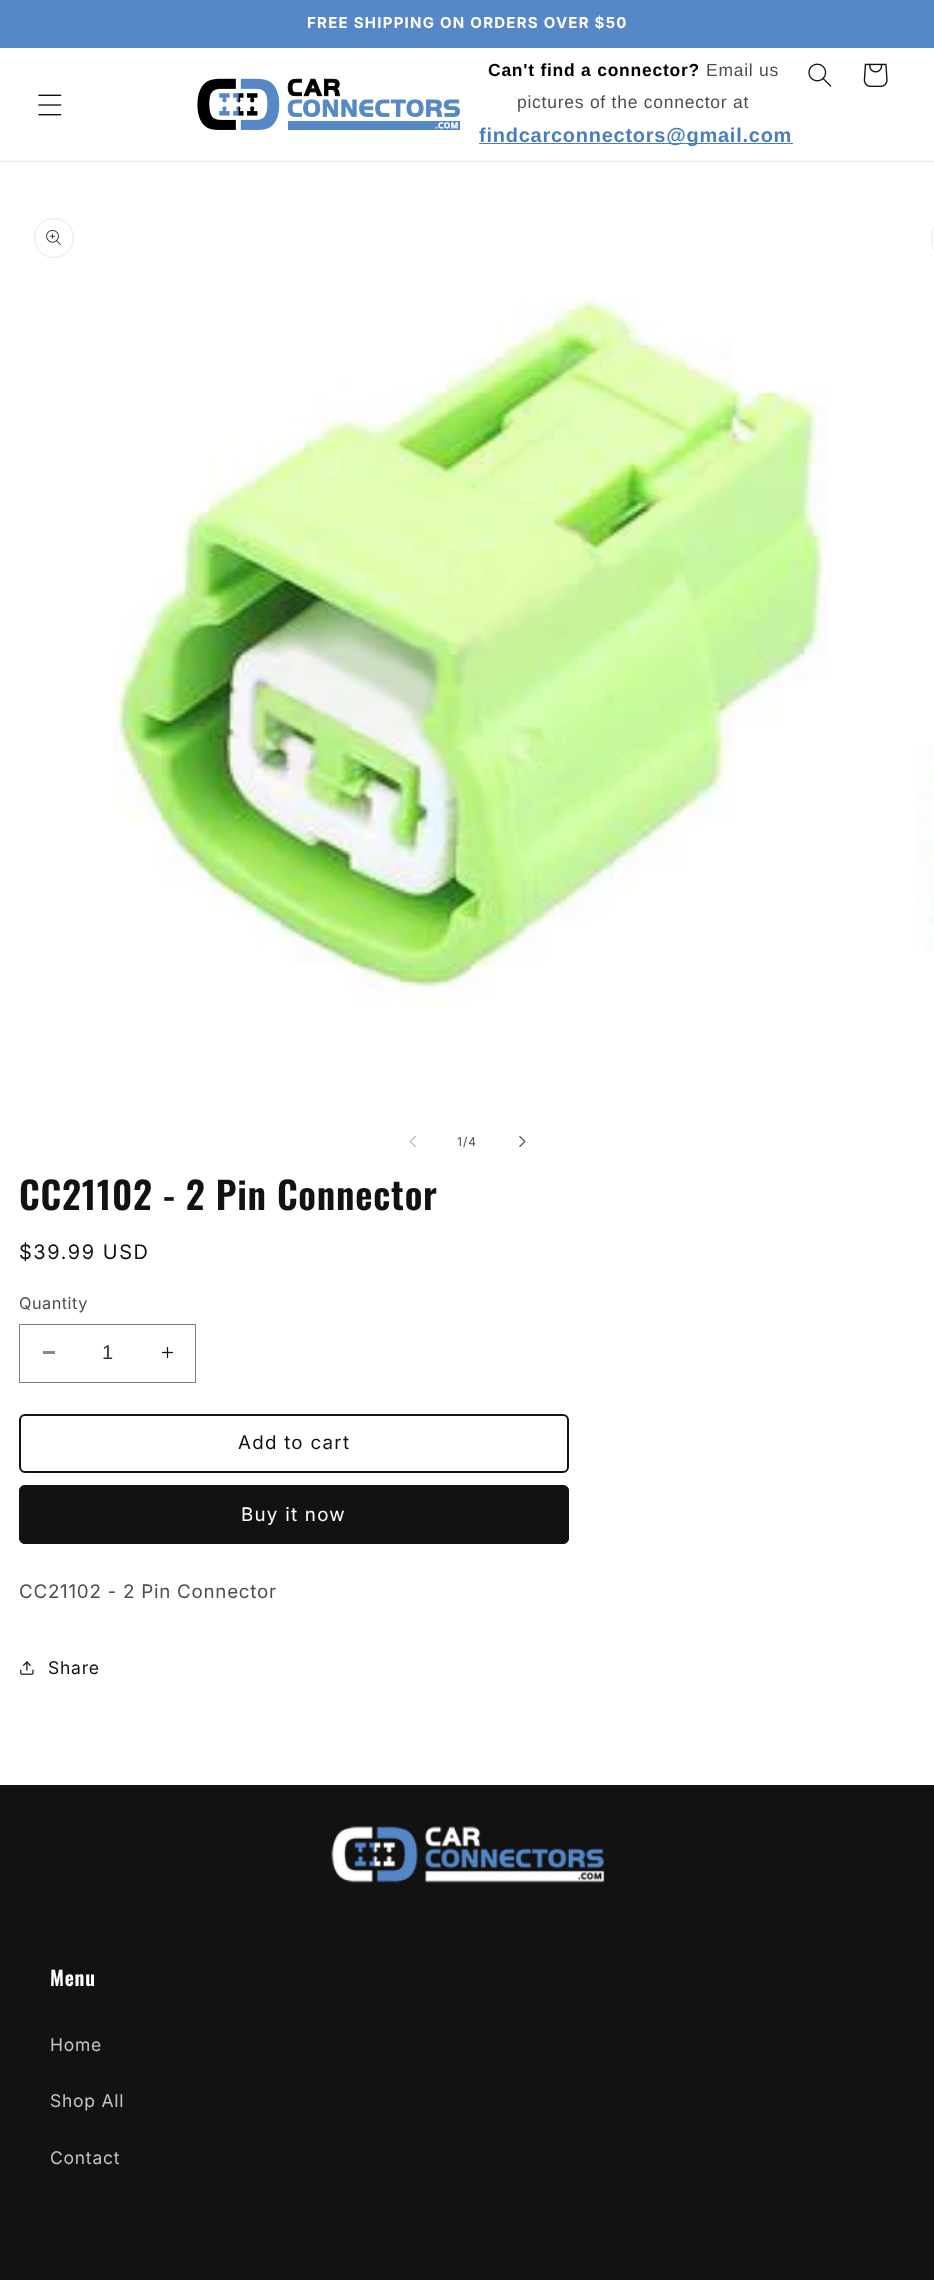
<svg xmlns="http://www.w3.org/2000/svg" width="934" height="2280">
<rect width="100%" height="100%" fill="#fff"/>
<rect width="934" height="48" fill="#5688c7"/>
<text x="307" y="28" style="font-family:inter;font-size:15px;font-weight:bold;letter-spacing:1.25px;fill:#fff">FREE SHIPPING ON ORDERS OVER $50</text>
<rect y="161" width="934" height="1" fill="#ececec"/>
<image x="38" y="94" width="24" height="22" href="media/1.png"/>
<image x="197" y="78" width="263" height="52" href="media/2.png"/>
<text x="488" y="76" style="font-family:Liberation Sans;font-size:17.5px;font-weight:bold;letter-spacing:0.75px;fill:#000">Can't find a connector?</text>
<text x="706" y="76" style="font-family:Liberation Sans;font-size:17.5px;letter-spacing:0.75px;fill:#4d4d4d">Email us</text>
<text x="517" y="108" style="font-family:Liberation Sans;font-size:17.5px;letter-spacing:0.75px;fill:#4d4d4d">pictures of the connector at</text>
<rect x="479" y="143" width="314" height="1" fill="#4a7ebb"/>
<text x="479" y="142" style="font-family:Liberation Sans;font-size:20px;font-weight:bold;letter-spacing:0.75px;fill:#4a7ebb">findcarconnectors@gmail.com</text>
<image x="808" y="63" width="24" height="24" href="media/3.png"/>
<image x="863" y="63" width="25" height="24" href="media/4.png"/>
<circle cx="54" cy="238" r="19.5" fill="none" stroke="#e7e7e7"/>
<image x="46" y="230" width="15" height="15" href="media/5.png"/>
<image x="113" y="298" width="715" height="709" href="media/6.png"/>
<rect x="931.5" y="218.5" width="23" height="39" rx="19.5" fill="none" stroke="#e7e7e7"/>
<image x="917" y="744" width="17" height="208" href="media/7.png"/>
<image x="409" y="1136" width="7" height="11" href="media/8.png"/>
<text x="457" y="1146" style="font-family:Inter;font-size:12px;letter-spacing:1px;fill:#4d4d4d">1/4</text>
<image x="519" y="1135" width="7" height="12" href="media/9.png"/>
<text x="19" y="1210" style="font-family:Oswald;font-size:37.5px;font-weight:600;letter-spacing:0.75px;fill:#121212">CC21102 - 2 Pin Connector</text>
<text x="19" y="1259" style="font-family:'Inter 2';font-size:20px;letter-spacing:1.6px;fill:#121212">$39.99 USD</text>
<text x="19" y="1309" style="font-family:Inter;font-size:16.25px;letter-spacing:0.5px;fill:#4d4d4d">Quantity</text>
<rect x="43" y="1351" width="12" height="3" fill="#898989"/>
<image x="161" y="1346" width="13" height="13" href="media/10.png"/>
<rect x="19.5" y="1324.5" width="176" height="58" fill="none" stroke="#7d7d7d"/>
<text x="102" y="1359" style="font-family:Liberation Sans;font-size:20px;fill:#363636">1</text>
<rect x="20" y="1415" width="548" height="57" rx="5" fill="none" stroke="#121212" stroke-width="2"/>
<text x="238" y="1449" style="font-family:Inter;font-size:18.75px;letter-spacing:1.25px;fill:#121212">Add to cart</text>
<rect x="19" y="1485" width="550" height="59" rx="6" fill="#121212"/>
<rect x="19.5" y="1485.5" width="549" height="58" rx="5.5" fill="none" stroke="#121212"/>
<text x="241" y="1521" style="font-family:Inter;font-size:18.75px;letter-spacing:1.25px;fill:#fff">Buy it now</text>
<text x="19" y="1598" style="font-family:Inter;font-size:18.75px;letter-spacing:0.75px;fill:#4d4d4d">CC21102 - 2 Pin Connector</text>
<image x="20" y="1661" width="14" height="14" href="media/11.png"/>
<text x="48" y="1674" style="font-family:Inter;font-size:17.5px;letter-spacing:0.75px;fill:#121212">Share</text>
<rect y="1785" width="934" height="495" fill="#121212"/>
<image x="331" y="1826" width="274" height="57" href="media/12.png"/>
<text x="50" y="1986" style="font-family:Oswald;font-size:20px;font-weight:600;letter-spacing:0.75px;fill:#fff">Menu</text>
<text x="50" y="2051" style="font-family:Inter;font-size:17.5px;letter-spacing:0.75px;fill:#c4c4c4">Home</text>
<text x="50" y="2107" style="font-family:Inter;font-size:17.5px;letter-spacing:0.75px;fill:#c4c4c4">Shop All</text>
<text x="50" y="2164" style="font-family:Inter;font-size:17.5px;letter-spacing:0.75px;fill:#c4c4c4">Contact</text>
</svg>
